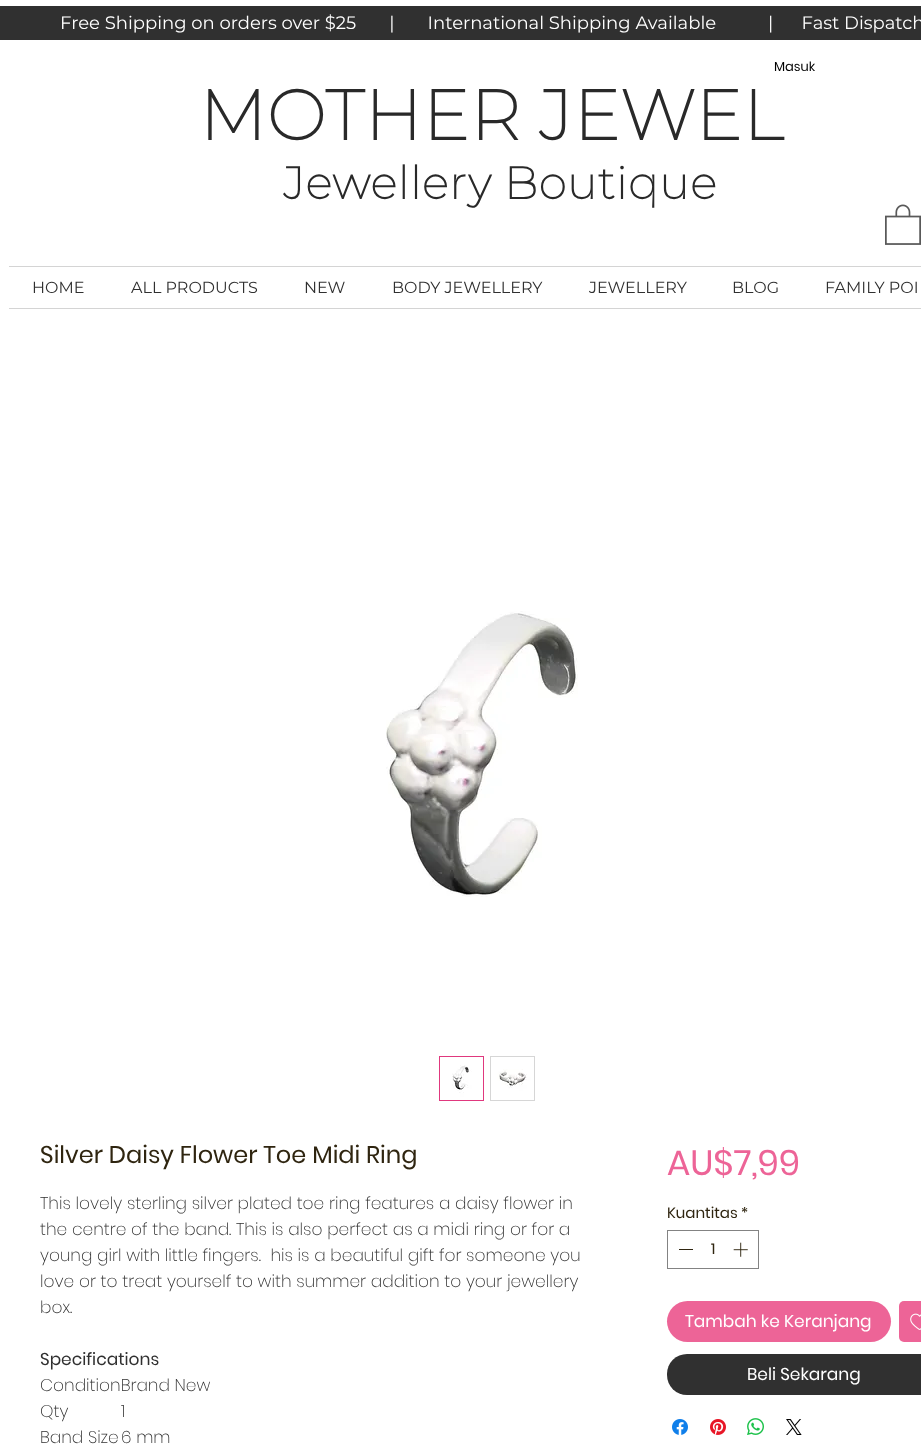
<svg xmlns="http://www.w3.org/2000/svg" width="921" height="1447">
<rect width="100%" height="100%" fill="#fff"/>
<rect y="6" width="921" height="34" fill="#303030"/>
<text x="60" y="29" style="font-family:Montserrat;font-size:18px;fill:#fff" xml:space="preserve">Free Shipping on orders over $25       |       International Shipping Available           |      Fast Dispatch</text>
<text x="774" y="71" style="font-family:Poppins;font-size:13px;fill:#000">Masuk</text>
<text x="199" y="140" style="font-family:Montserrat;font-size:70px;font-weight:bold;letter-spacing:0.75px;fill:#292929">MOTHER JEWEL</text>
<text x="283" y="199" style="font-family:Montserrat;font-size:45px;font-weight:bold;letter-spacing:0.9px;fill:#292929">Jewellery Boutique</text>
<image x="885" y="204" width="36" height="41" href="media/1.png"/>
<rect x="9" y="266" width="912" height="1" fill="#d4d4d4"/>
<rect x="9" y="308" width="912" height="1" fill="#d4d4d4"/>
<text x="32" y="293" style="font-family:Montserrat;font-size:16px;fill:#303030">HOME</text>
<text x="131" y="293" style="font-family:Montserrat;font-size:16px;fill:#303030">ALL PRODUCTS</text>
<text x="304" y="293" style="font-family:Montserrat;font-size:16px;fill:#303030">NEW</text>
<text x="392" y="293" style="font-family:Montserrat;font-size:16px;fill:#303030">BODY JEWELLERY</text>
<text x="589" y="293" style="font-family:Montserrat;font-size:16px;fill:#303030">JEWELLERY</text>
<text x="732" y="293" style="font-family:Montserrat;font-size:16px;fill:#303030">BLOG</text>
<text x="825" y="293" style="font-family:Montserrat;font-size:16px;fill:#303030">FAMILY POI</text>
<image x="386" y="611" width="192" height="286" href="media/2.png"/>
<rect x="439.5" y="1056.5" width="44" height="44" fill="none" stroke="#e0387e"/>
<image x="440" y="1057" width="43" height="43" href="media/3.png"/>
<rect x="490" y="1056" width="45" height="45" fill="#d6d6d6"/>
<image x="491" y="1057" width="43" height="43" href="media/4.png"/>
<text x="40" y="1163" style="font-family:Poppins;font-size:24px;fill:#2f2510">Silver Daisy Flower Toe Midi Ring</text>
<text x="40" y="1209" style="font-family:Poppins;font-size:17px;font-weight:200;fill:#303030">This lovely sterling silver plated toe ring features a daisy flower in</text>
<text x="40" y="1235" style="font-family:Poppins;font-size:17px;font-weight:200;fill:#303030">the centre of the band. This is also perfect as a midi ring or for a</text>
<text x="40" y="1261" style="font-family:Poppins;font-size:17px;font-weight:200;fill:#303030" xml:space="preserve">young girl with little fingers.  his is a beautiful gift for someone you</text>
<text x="40" y="1287" style="font-family:Poppins;font-size:17px;font-weight:200;fill:#303030">love or to treat yourself to with summer addition to your jewellery</text>
<text x="40" y="1313" style="font-family:Poppins;font-size:17px;font-weight:200;fill:#303030">box.</text>
<text x="40" y="1365" style="font-family:Poppins;font-size:17px;fill:#303030">Specifications</text>
<text x="40" y="1391" style="font-family:Poppins;font-size:17px;font-weight:200;fill:#303030">ConditionBrand New</text>
<text x="40" y="1417" style="font-family:Poppins;font-size:17px;font-weight:200;fill:#303030">Qty</text>
<text x="121" y="1417" style="font-family:Poppins;font-size:17px;font-weight:200;fill:#303030">1</text>
<text x="40" y="1443" style="font-family:Poppins;font-size:17px;font-weight:200;fill:#303030">Band Size</text>
<text x="121" y="1443" style="font-family:Poppins;font-size:17px;font-weight:200;fill:#303030">6 mm</text>
<text x="667" y="1175" style="font-family:Poppins;font-size:35px;fill:#ed6497">AU$7,99</text>
<text x="667" y="1218" style="font-family:Poppins;font-size:15px;fill:#2f2510">Kuantitas</text>
<text x="741" y="1218" style="font-family:Poppins;font-size:15px;fill:#2f2510">*</text>
<rect x="667.5" y="1230.5" width="91" height="38" fill="none" stroke="#838383"/>
<rect x="679" y="1249" width="14" height="1" fill="#2f2510"/>
<text x="711" y="1254" style="font-family:Poppins;font-size:15px;fill:#2f2510">1</text>
<image x="733" y="1242" width="15" height="15" href="media/5.png"/>
<rect x="667" y="1301" width="224" height="41" rx="20.5" fill="#ed6497"/>
<text x="685" y="1327" style="font-family:Poppins;font-size:17px;fill:#fff">Tambah ke Keranjang</text>
<rect x="899" y="1301" width="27" height="41" rx="5" fill="#ed6497"/>
<image x="910" y="1313" width="11" height="17" href="media/6.png"/>
<rect x="667" y="1354" width="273" height="41" rx="20" fill="#303030"/>
<text x="747" y="1380" style="font-family:Poppins;font-size:17px;fill:#fff">Beli Sekarang</text>
<image x="672" y="1419" width="16" height="16" href="media/7.png"/>
<image x="710" y="1419" width="16" height="16" href="media/8.png"/>
<image x="747" y="1418" width="17" height="17" href="media/9.png"/>
<image x="786" y="1419" width="16" height="16" href="media/10.png"/>
</svg>
